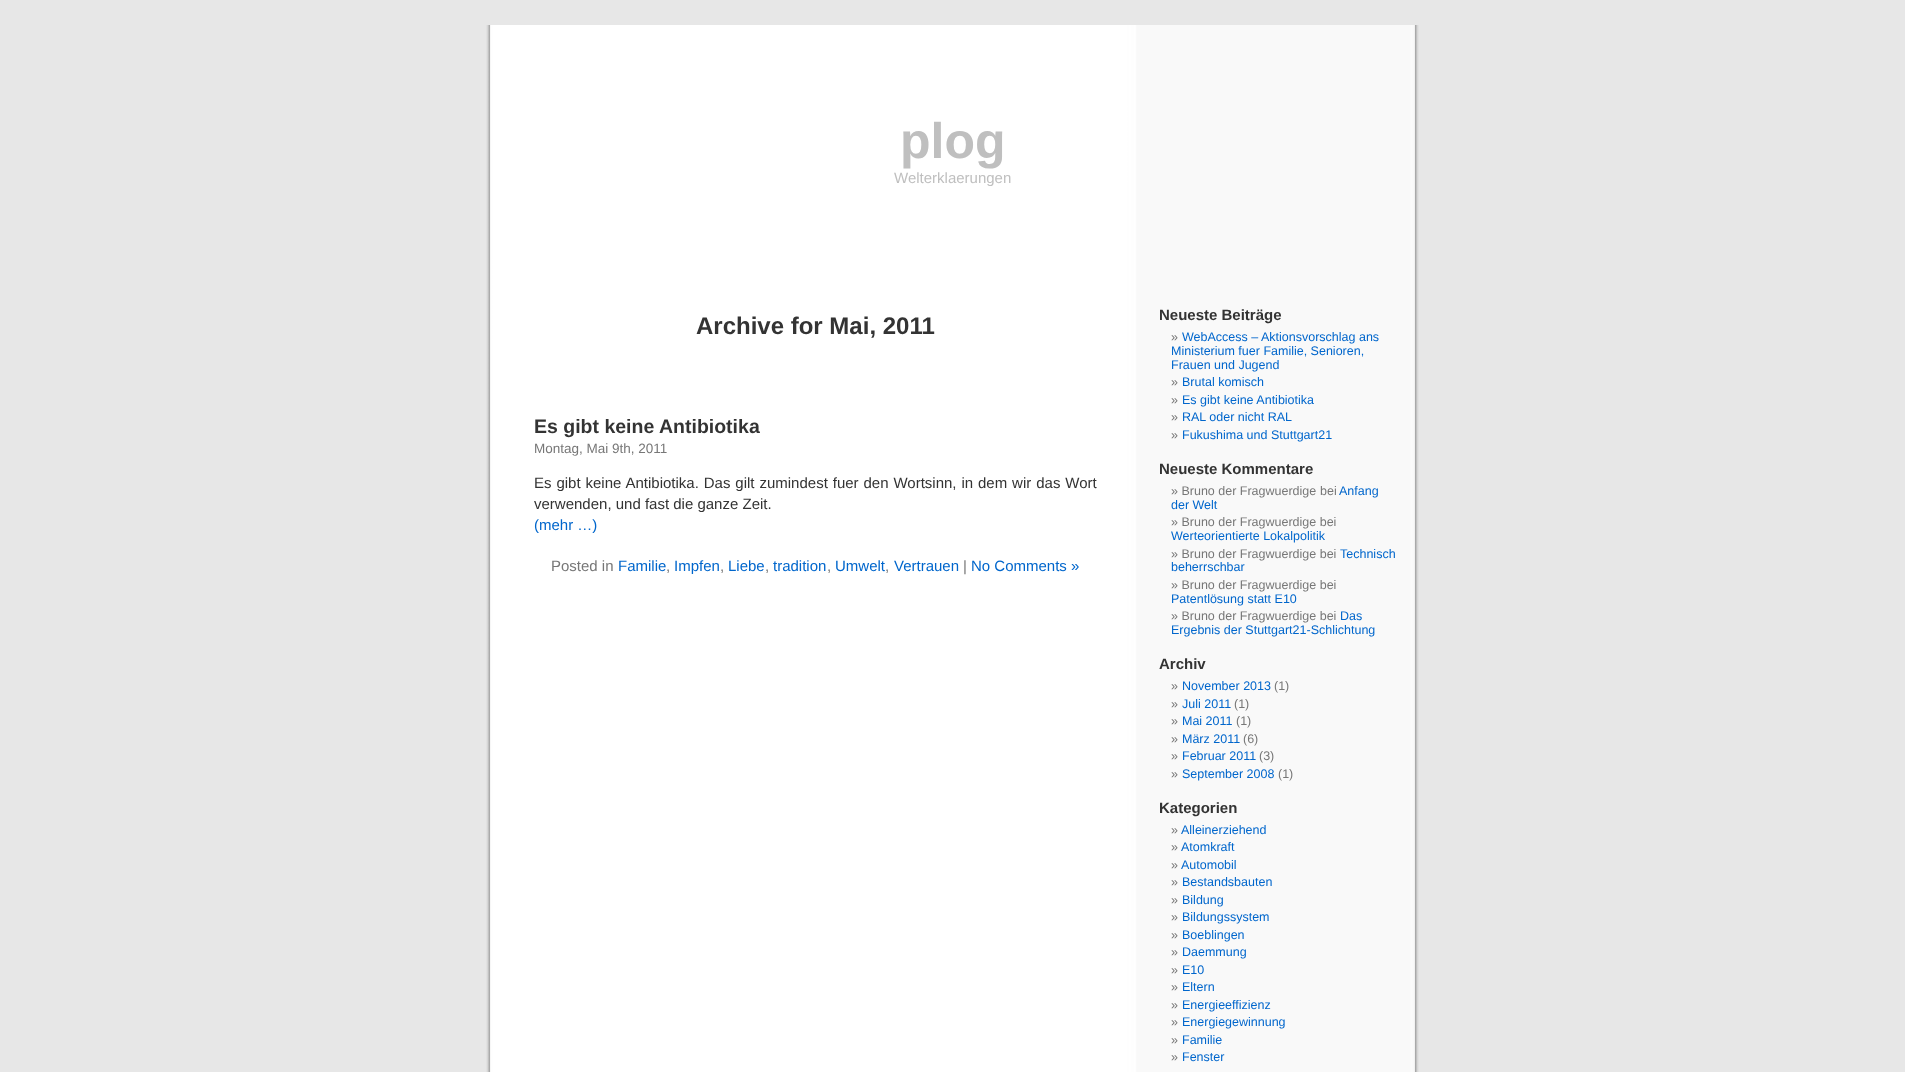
<svg xmlns="http://www.w3.org/2000/svg" width="1905" height="1072">
<rect width="100%" height="100%" fill="#e7e7e7"/>
<image x="486" y="25" width="933" height="1047" href="media/1.png"/>
<text x="900" y="158" style="font-family:Liberation Sans;font-size:50px;font-weight:bold;fill:#bfbfbf">plog</text>
<text x="894" y="183" style="font-family:Liberation Sans;font-size:15px;fill:#bfbfbf">Welterklaerungen</text>
<text x="696" y="334" style="font-family:Liberation Sans;font-size:24px;font-weight:bold;fill:#333">Archive for Mai, 2011</text>
<text x="534" y="433" style="font-family:Liberation Sans;font-size:19.5px;font-weight:bold;fill:#333">Es gibt keine Antibiotika</text>
<text x="534" y="453" style="font-family:Liberation Sans;font-size:13.5px;fill:#777">Montag, Mai 9th, 2011</text>
<text x="534" y="488" word-spacing="0.75" style="font-family:Liberation Sans;font-size:15px;fill:#333">Es gibt keine Antibiotika. Das gilt zumindest fuer den Wortsinn, in dem wir das Wort</text>
<text x="534" y="509" style="font-family:Liberation Sans;font-size:15px;fill:#333">verwenden, und fast die ganze Zeit.</text>
<text x="534" y="530" style="font-family:Liberation Sans;font-size:15px;fill:#06c">(mehr …)</text>
<text x="551" y="571" style="font-family:Liberation Sans;font-size:15px;fill:#777">Posted in</text>
<text x="618" y="571" style="font-family:Liberation Sans;font-size:15px;fill:#06c">Familie</text>
<text x="666" y="571" style="font-family:Liberation Sans;font-size:15px;fill:#777">,</text>
<text x="674" y="571" style="font-family:Liberation Sans;font-size:15px;fill:#06c">Impfen</text>
<text x="720" y="571" style="font-family:Liberation Sans;font-size:15px;fill:#777">,</text>
<text x="728" y="571" style="font-family:Liberation Sans;font-size:15px;fill:#06c">Liebe</text>
<text x="765" y="571" style="font-family:Liberation Sans;font-size:15px;fill:#777">,</text>
<text x="773" y="571" style="font-family:Liberation Sans;font-size:15px;fill:#06c">tradition</text>
<text x="827" y="571" style="font-family:Liberation Sans;font-size:15px;fill:#777">,</text>
<text x="835" y="571" style="font-family:Liberation Sans;font-size:15px;fill:#06c">Umwelt</text>
<text x="885" y="571" style="font-family:Liberation Sans;font-size:15px;fill:#777">,</text>
<text x="894" y="571" style="font-family:Liberation Sans;font-size:15px;fill:#06c">Vertrauen</text>
<text x="963" y="571" style="font-family:Liberation Sans;font-size:15px;fill:#777">|</text>
<text x="971" y="571" style="font-family:Liberation Sans;font-size:15px;fill:#06c">No Comments »</text>
<text x="1159" y="320" style="font-family:Liberation Sans;font-size:15px;font-weight:bold;fill:#333">Neueste Beiträge</text>
<text x="1171" y="341" style="font-family:Liberation Sans;font-size:12.5px;fill:#777">»</text>
<text x="1182" y="341" style="font-family:Liberation Sans;font-size:12.5px;fill:#06c">WebAccess – Aktionsvorschlag ans</text>
<text x="1171" y="355" style="font-family:Liberation Sans;font-size:12.5px;fill:#06c">Ministerium fuer Familie, Senioren,</text>
<text x="1171" y="369" style="font-family:Liberation Sans;font-size:12.5px;fill:#06c">Frauen und Jugend</text>
<text x="1171" y="386" style="font-family:Liberation Sans;font-size:12.5px;fill:#777">»</text>
<text x="1182" y="386" style="font-family:Liberation Sans;font-size:12.5px;fill:#06c">Brutal komisch</text>
<text x="1171" y="404" style="font-family:Liberation Sans;font-size:12.5px;fill:#777">»</text>
<text x="1182" y="404" style="font-family:Liberation Sans;font-size:12.5px;fill:#06c">Es gibt keine Antibiotika</text>
<text x="1171" y="421" style="font-family:Liberation Sans;font-size:12.5px;fill:#777">»</text>
<text x="1182" y="421" style="font-family:Liberation Sans;font-size:12.5px;fill:#06c">RAL oder nicht RAL</text>
<text x="1171" y="439" style="font-family:Liberation Sans;font-size:12.5px;fill:#777">»</text>
<text x="1182" y="439" style="font-family:Liberation Sans;font-size:12.5px;fill:#06c">Fukushima und Stuttgart21</text>
<text x="1159" y="474" style="font-family:Liberation Sans;font-size:15px;font-weight:bold;fill:#333">Neueste Kommentare</text>
<text x="1171" y="495" style="font-family:Liberation Sans;font-size:12.5px;fill:#777">» Bruno der Fragwuerdige</text>
<text x="1320" y="495" style="font-family:Liberation Sans;font-size:12.5px;fill:#777">bei</text>
<text x="1339" y="495" style="font-family:Liberation Sans;font-size:12.5px;fill:#06c">Anfang</text>
<text x="1171" y="509" style="font-family:Liberation Sans;font-size:12.5px;fill:#06c">der Welt</text>
<text x="1171" y="526" style="font-family:Liberation Sans;font-size:12.5px;fill:#777">» Bruno der Fragwuerdige bei</text>
<text x="1171" y="540" style="font-family:Liberation Sans;font-size:12.5px;fill:#06c">Werteorientierte Lokalpolitik</text>
<text x="1171" y="558" style="font-family:Liberation Sans;font-size:12.5px;fill:#777">» Bruno der Fragwuerdige bei</text>
<text x="1340" y="558" style="font-family:Liberation Sans;font-size:12.5px;fill:#06c">Technisch</text>
<text x="1171" y="571" style="font-family:Liberation Sans;font-size:12.5px;fill:#06c">beherrschbar</text>
<text x="1171" y="589" style="font-family:Liberation Sans;font-size:12.5px;fill:#777">» Bruno der Fragwuerdige bei</text>
<text x="1171" y="603" style="font-family:Liberation Sans;font-size:12.5px;fill:#06c">Patentlösung statt E10</text>
<text x="1171" y="620" style="font-family:Liberation Sans;font-size:12.5px;fill:#777">» Bruno der Fragwuerdige bei</text>
<text x="1340" y="620" style="font-family:Liberation Sans;font-size:12.5px;fill:#06c">Das</text>
<text x="1171" y="634" style="font-family:Liberation Sans;font-size:12.5px;fill:#06c">Ergebnis der Stuttgart21-Schlichtung</text>
<text x="1159" y="669" style="font-family:Liberation Sans;font-size:15px;font-weight:bold;fill:#333">Archiv</text>
<text x="1171" y="690" style="font-family:Liberation Sans;font-size:12.5px;fill:#777">»</text>
<text x="1182" y="690" style="font-family:Liberation Sans;font-size:12.5px;fill:#06c">November 2013</text>
<text x="1274" y="690" style="font-family:Liberation Sans;font-size:12.5px;fill:#777">(1)</text>
<text x="1171" y="708" style="font-family:Liberation Sans;font-size:12.5px;fill:#777">»</text>
<text x="1182" y="708" style="font-family:Liberation Sans;font-size:12.5px;fill:#06c">Juli 2011</text>
<text x="1234" y="708" style="font-family:Liberation Sans;font-size:12.5px;fill:#777">(1)</text>
<text x="1171" y="725" style="font-family:Liberation Sans;font-size:12.5px;fill:#777">»</text>
<text x="1182" y="725" style="font-family:Liberation Sans;font-size:12.5px;fill:#06c">Mai 2011</text>
<text x="1236" y="725" style="font-family:Liberation Sans;font-size:12.5px;fill:#777">(1)</text>
<text x="1171" y="743" style="font-family:Liberation Sans;font-size:12.5px;fill:#777">»</text>
<text x="1182" y="743" style="font-family:Liberation Sans;font-size:12.5px;fill:#06c">März 2011</text>
<text x="1243" y="743" style="font-family:Liberation Sans;font-size:12.5px;fill:#777">(6)</text>
<text x="1171" y="760" style="font-family:Liberation Sans;font-size:12.5px;fill:#777">»</text>
<text x="1182" y="760" style="font-family:Liberation Sans;font-size:12.5px;fill:#06c">Februar 2011</text>
<text x="1259" y="760" style="font-family:Liberation Sans;font-size:12.5px;fill:#777">(3)</text>
<text x="1171" y="778" style="font-family:Liberation Sans;font-size:12.5px;fill:#777">»</text>
<text x="1182" y="778" style="font-family:Liberation Sans;font-size:12.5px;fill:#06c">September 2008</text>
<text x="1278" y="778" style="font-family:Liberation Sans;font-size:12.5px;fill:#777">(1)</text>
<text x="1159" y="813" style="font-family:Liberation Sans;font-size:15px;font-weight:bold;fill:#333">Kategorien</text>
<text x="1171" y="834" style="font-family:Liberation Sans;font-size:12.5px;fill:#777">»</text>
<text x="1181" y="834" style="font-family:Liberation Sans;font-size:12.5px;fill:#06c">Alleinerziehend</text>
<text x="1171" y="851" style="font-family:Liberation Sans;font-size:12.5px;fill:#777">»</text>
<text x="1181" y="851" style="font-family:Liberation Sans;font-size:12.5px;fill:#06c">Atomkraft</text>
<text x="1171" y="869" style="font-family:Liberation Sans;font-size:12.5px;fill:#777">»</text>
<text x="1181" y="869" style="font-family:Liberation Sans;font-size:12.5px;fill:#06c">Automobil</text>
<text x="1171" y="886" style="font-family:Liberation Sans;font-size:12.5px;fill:#777">»</text>
<text x="1182" y="886" style="font-family:Liberation Sans;font-size:12.5px;fill:#06c">Bestandsbauten</text>
<text x="1171" y="904" style="font-family:Liberation Sans;font-size:12.5px;fill:#777">»</text>
<text x="1182" y="904" style="font-family:Liberation Sans;font-size:12.5px;fill:#06c">Bildung</text>
<text x="1171" y="921" style="font-family:Liberation Sans;font-size:12.5px;fill:#777">»</text>
<text x="1182" y="921" style="font-family:Liberation Sans;font-size:12.5px;fill:#06c">Bildungssystem</text>
<text x="1171" y="939" style="font-family:Liberation Sans;font-size:12.5px;fill:#777">»</text>
<text x="1182" y="939" style="font-family:Liberation Sans;font-size:12.5px;fill:#06c">Boeblingen</text>
<text x="1171" y="956" style="font-family:Liberation Sans;font-size:12.5px;fill:#777">»</text>
<text x="1182" y="956" style="font-family:Liberation Sans;font-size:12.5px;fill:#06c">Daemmung</text>
<text x="1171" y="974" style="font-family:Liberation Sans;font-size:12.5px;fill:#777">»</text>
<text x="1182" y="974" style="font-family:Liberation Sans;font-size:12.5px;fill:#06c">E10</text>
<text x="1171" y="991" style="font-family:Liberation Sans;font-size:12.5px;fill:#777">»</text>
<text x="1182" y="991" style="font-family:Liberation Sans;font-size:12.5px;fill:#06c">Eltern</text>
<text x="1171" y="1009" style="font-family:Liberation Sans;font-size:12.5px;fill:#777">»</text>
<text x="1182" y="1009" style="font-family:Liberation Sans;font-size:12.5px;fill:#06c">Energieeffizienz</text>
<text x="1171" y="1026" style="font-family:Liberation Sans;font-size:12.5px;fill:#777">»</text>
<text x="1182" y="1026" style="font-family:Liberation Sans;font-size:12.5px;fill:#06c">Energiegewinnung</text>
<text x="1171" y="1044" style="font-family:Liberation Sans;font-size:12.5px;fill:#777">»</text>
<text x="1182" y="1044" style="font-family:Liberation Sans;font-size:12.5px;fill:#06c">Familie</text>
<text x="1171" y="1061" style="font-family:Liberation Sans;font-size:12.5px;fill:#777">»</text>
<text x="1182" y="1061" style="font-family:Liberation Sans;font-size:12.5px;fill:#06c">Fenster</text>
</svg>
